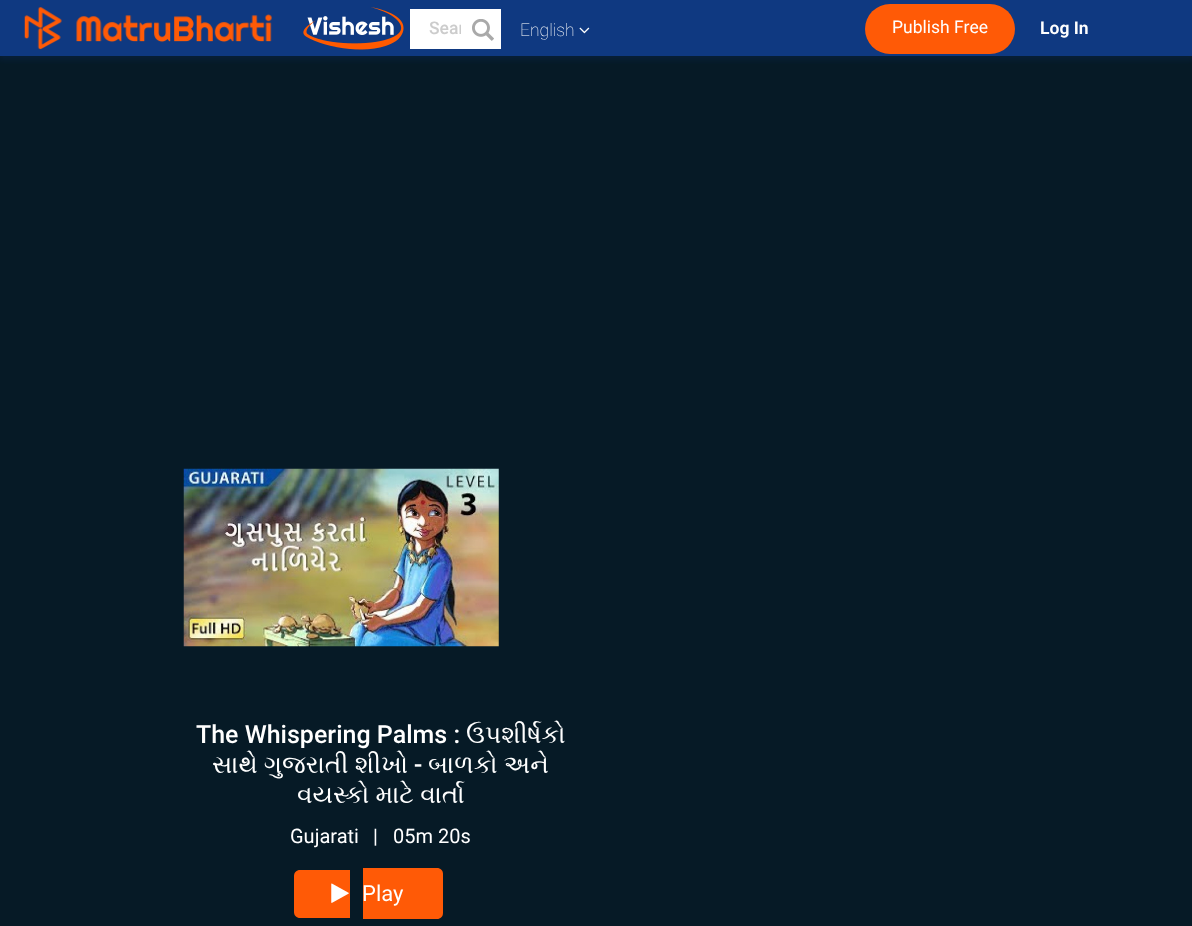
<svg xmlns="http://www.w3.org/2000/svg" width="1192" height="926">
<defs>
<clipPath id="clip1"><rect x="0" y="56" width="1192" height="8"/></clipPath>
</defs>
<rect width="100%" height="100%" fill="#0f3981"/>
<rect y="56" width="1192" height="870" fill="#061a26"/>
<g clip-path="url(#clip1)">
<rect x="-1" y="1" width="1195" height="59" fill="#0f398133" filter="blur(3px)"/>
</g>
<image x="24" y="7" width="248" height="43" href="media/1.png"/>
<image x="303" y="7" width="101" height="43" href="media/2.png"/>
<rect x="410" y="9" width="51" height="40" fill="#fff"/>
<text x="429" y="34" style="font-family:Roboto;font-size:17.5px;font-weight:500;fill:#ccc">Sear</text>
<rect x="461" y="9" width="40" height="40" fill="#fff"/>
<image x="472" y="19" width="22" height="22" href="media/3.png"/>
<text x="520" y="36" style="font-family:Roboto;font-size:17.5px;font-weight:100;fill:#fff">English</text>
<image x="579" y="27" width="11" height="7" href="media/4.png"/>
<rect x="865" y="4" width="150" height="50" rx="25" fill="#ff5a06"/>
<text x="892" y="33" style="font-family:Heebo;font-size:17.5px;fill:#fff">Publish Free</text>
<text x="1040" y="34" style="font-family:Heebo;font-size:17.5px;font-weight:600;fill:#fff">Log In</text>
<image x="183" y="468" width="316" height="179" href="media/5.png"/>
<text x="196" y="743" style="font-family:Roboto;font-size:25px;font-weight:500;fill:#fff">The Whispering Palms :</text>
<text x="466" y="743" style="font-family:FreeSerif;font-size:25px;fill:#fff">ઉપશીર્ષકો</text>
<text x="212" y="773" style="font-family:FreeSerif;font-size:25px;fill:#fff">સાથે ગુજરાતી શીખો</text>
<text x="414" y="773" style="font-family:Roboto;font-size:25px;font-weight:500;fill:#fff">-</text>
<text x="428" y="773" style="font-family:FreeSerif;font-size:25px;fill:#fff">બાળકો અને</text>
<text x="297" y="803" style="font-family:FreeSerif;font-size:25px;fill:#fff">વયસ્કો માટે વાર્તા</text>
<text x="290" y="843" style="font-family:Roboto;font-size:20px;fill:#fff">Gujarati</text>
<text x="373" y="843" style="font-family:Roboto;font-size:20px;fill:#fff">|</text>
<text x="393" y="843" style="font-family:Roboto;font-size:20px;fill:#fff">05m 20s</text>
<path d="M300 870h50v48h-50c-3.5 0-6-2.5-6-6v-36c0-3.5 2.5-6 6-6z" fill="#ff5a06"/>
<path d="M363 868h74c3.5 0 6 2.5 6 6v39c0 3.5-2.5 6-6 6h-74z" fill="#ff5a06"/>
<image x="331" y="883" width="18" height="20" href="media/6.png"/>
<text x="362" y="901" style="font-family:Roboto;font-size:22px;fill:#fff">Play</text>
</svg>
